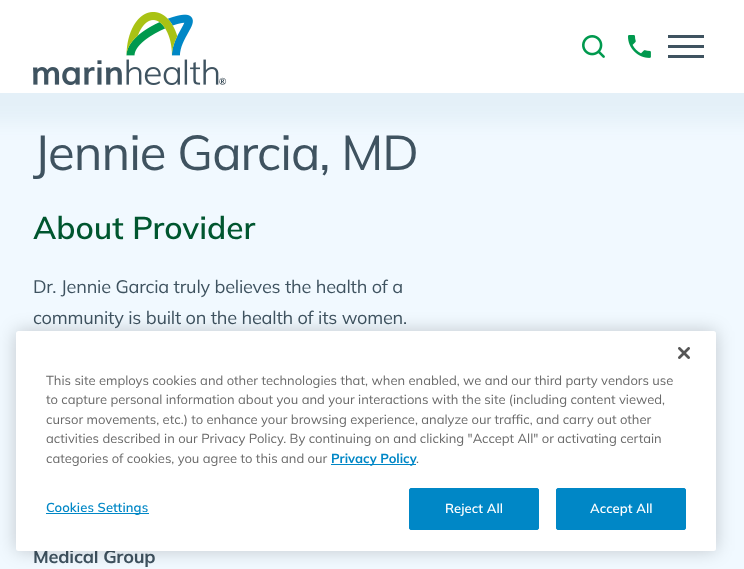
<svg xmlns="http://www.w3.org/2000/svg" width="744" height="569">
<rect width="100%" height="100%" fill="#f1f9ff"/>
<rect x="-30" y="-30" width="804" height="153" fill="#00467f0d" filter="blur(10px)"/>
<rect width="744" height="93" fill="#fff"/>
<image x="33" y="12" width="194" height="73" href="media/1.png"/>
<image x="582" y="35" width="23" height="23" href="media/2.png"/>
<image x="628" y="35" width="23" height="23" href="media/3.png"/>
<rect x="668" y="35" width="36" height="3" fill="#3f5360"/>
<rect x="668" y="45" width="36" height="3" fill="#3f5360"/>
<rect x="668" y="55" width="36" height="3" fill="#3f5360"/>
<text x="33" y="170" style="font-family:Mulish;font-size:49px;letter-spacing:-1px;fill:#3f5360">Jennie Garcia, MD</text>
<text x="33" y="239" style="font-family:Mulish;font-size:31.5px;font-weight:600;fill:#00562f">About Provider</text>
<text x="33" y="293" style="font-family:Mulish;font-size:18.15px;letter-spacing:-0.2px;fill:#3f5360">Dr. Jennie Garcia truly believes the health of a</text>
<text x="33" y="324" style="font-family:Mulish;font-size:18.15px;letter-spacing:-0.2px;fill:#3f5360">community is built on the health of its women.</text>
<text x="33" y="563" style="font-family:Mulish;font-size:18.15px;font-weight:bold;letter-spacing:-0.2px;fill:#3f5360">Medical Group</text>
<rect x="16" y="331" width="700" height="220" rx="2.5" fill="#00000033" filter="blur(9px)"/>
<rect x="16" y="331" width="700" height="220" rx="2.5" fill="#fff"/>
<image x="678" y="347" width="12" height="12" href="media/4.png"/>
<text x="46" y="385" style="font-family:Mulish;font-size:13px;fill:#696969">This site employs cookies and other technologies that, when enabled, we and our third party vendors use</text>
<text x="46" y="404" style="font-family:Mulish;font-size:13px;fill:#696969">to capture personal information about you and your interactions with the site (including content viewed,</text>
<text x="46" y="424" style="font-family:Mulish;font-size:13px;fill:#696969">cursor movements, etc.) to enhance your browsing experience, analyze our traffic, and carry out other</text>
<text x="46" y="443" style="font-family:Mulish;font-size:13px;fill:#696969">activities described in our Privacy Policy. By continuing on and clicking "Accept All" or activating certain</text>
<text x="46" y="463" style="font-family:Mulish;font-size:13px;fill:#696969">categories of cookies, you agree to this and our</text>
<rect x="331" y="464" width="85" height="1" fill="#0087c6"/>
<text x="331" y="463" style="font-family:Mulish;font-size:13px;font-weight:bold;fill:#0087c6">Privacy Policy</text>
<text x="416" y="463" style="font-family:Mulish;font-size:13px;fill:#696969">.</text>
<rect x="46" y="513" width="103" height="1" fill="#0087c6"/>
<text x="46" y="512" style="font-family:Mulish;font-size:13px;font-weight:600;letter-spacing:0.1px;fill:#0087c6">Cookies Settings</text>
<rect x="409.5" y="488.5" width="129" height="41" rx="1.5" fill="#0087c6" stroke="#0087c6"/>
<text x="445" y="513" style="font-family:Mulish;font-size:13px;font-weight:600;letter-spacing:0.1px;fill:#fff">Reject All</text>
<rect x="556.5" y="488.5" width="129" height="41" rx="1.5" fill="#0087c6" stroke="#0087c6"/>
<text x="590" y="513" style="font-family:Mulish;font-size:13px;font-weight:600;letter-spacing:0.1px;fill:#fff">Accept All</text>
</svg>
